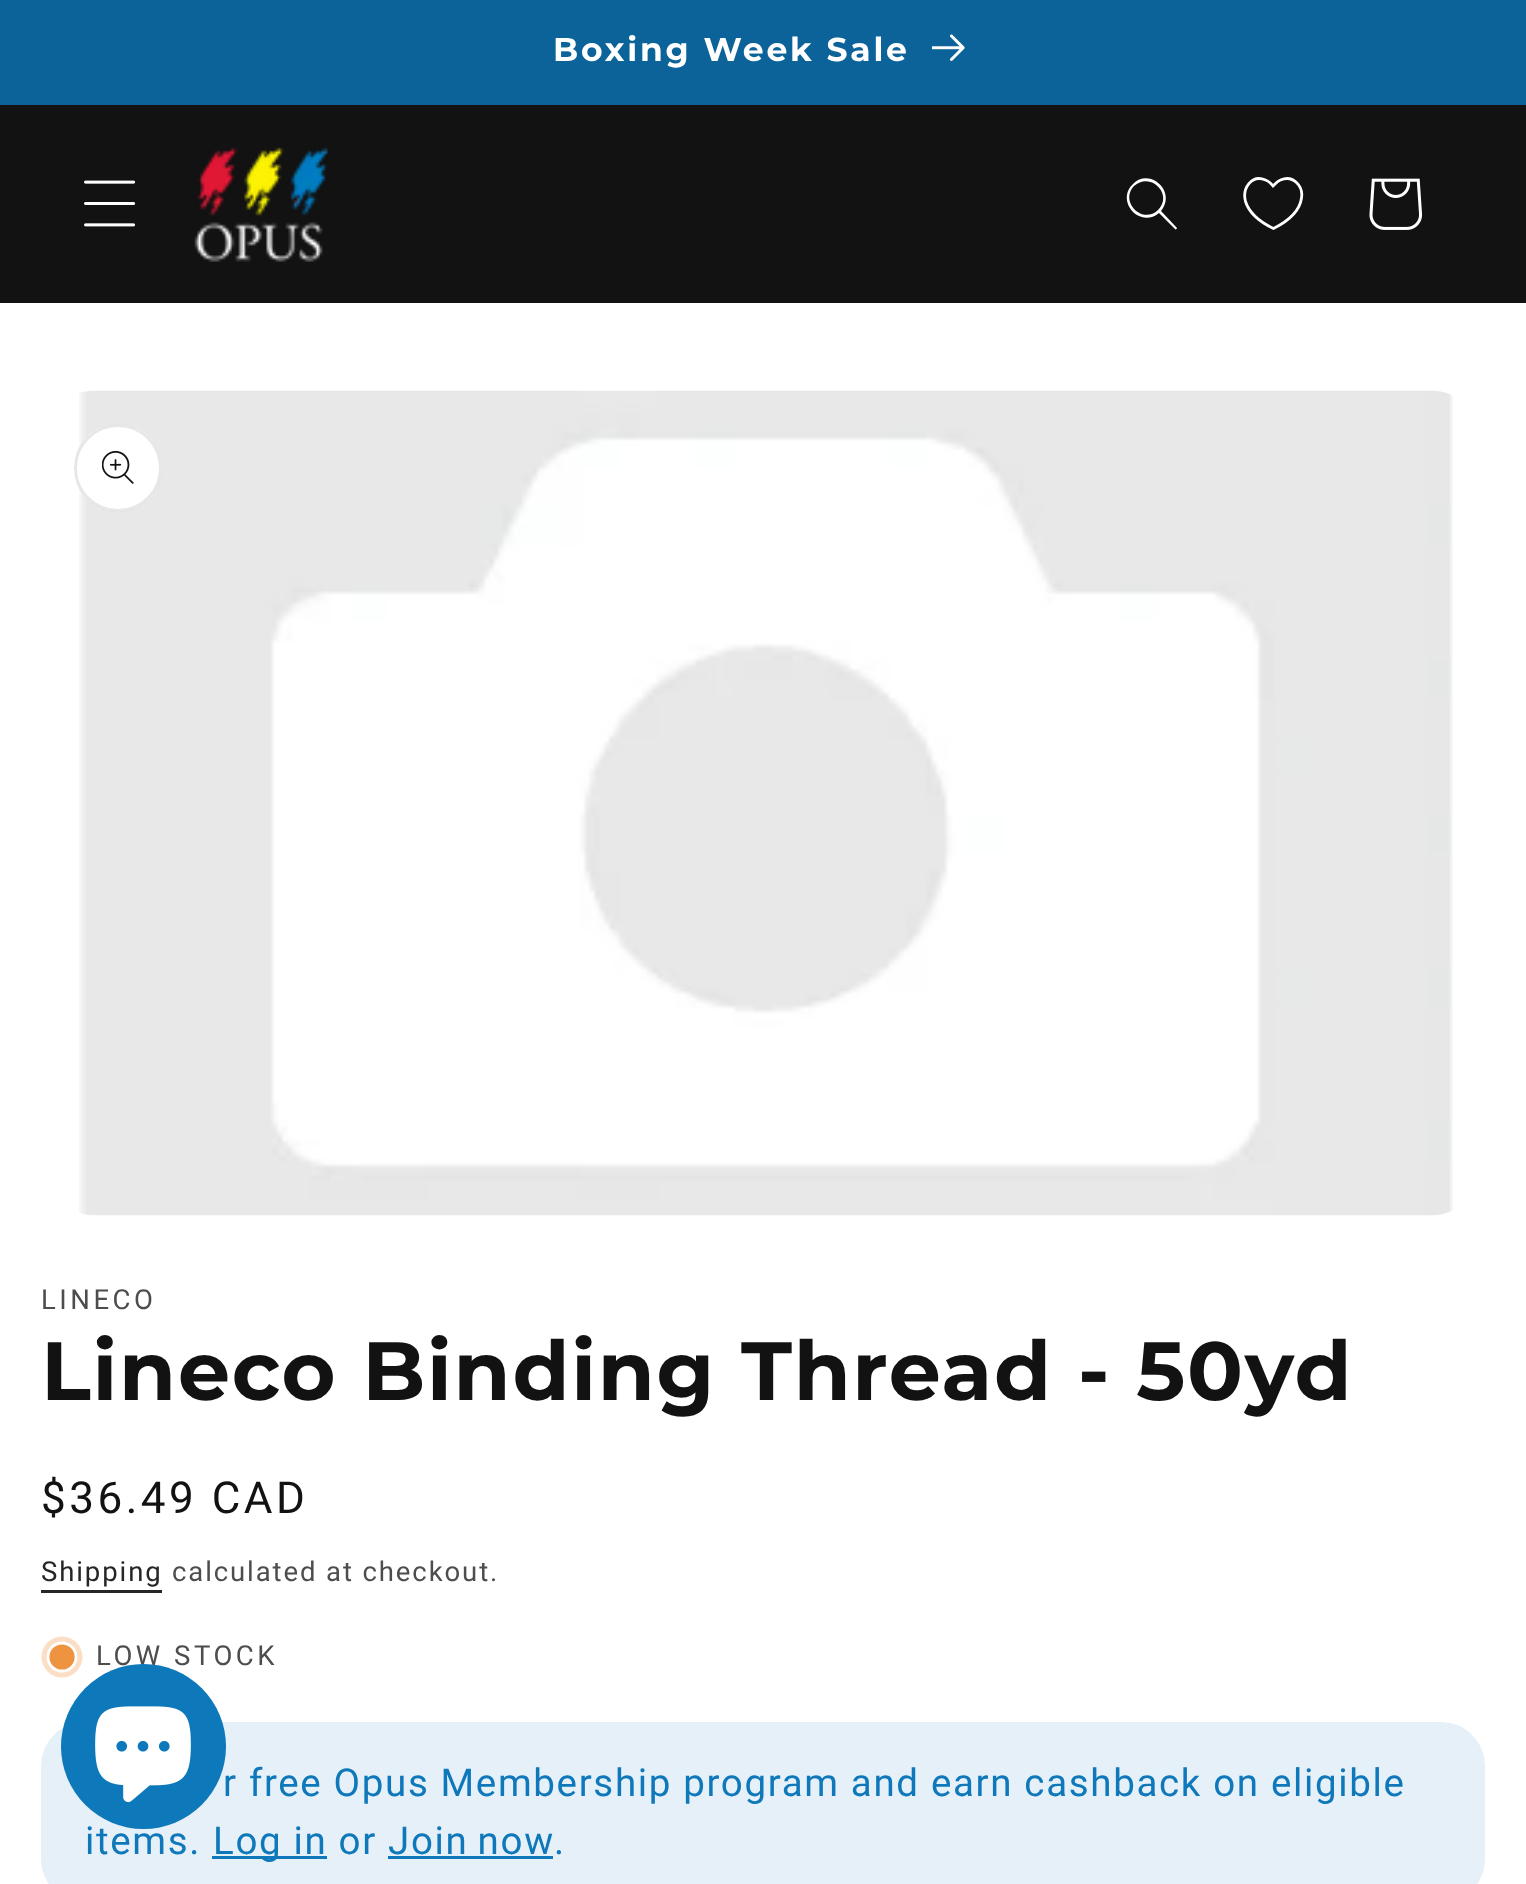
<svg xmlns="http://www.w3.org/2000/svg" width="1526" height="1884">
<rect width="100%" height="100%" fill="#fff"/>
<rect width="1526" height="105" fill="#0b6399"/>
<text x="553" y="61" style="font-family:Montserrat;font-size:33px;font-weight:bold;letter-spacing:2.75px;fill:#fff">Boxing Week Sale</text>
<image x="932" y="34" width="33" height="27" href="media/1.png"/>
<rect y="105" width="1526" height="198" fill="#121212"/>
<image x="84" y="180" width="52" height="47" href="media/2.png"/>
<image x="194" y="147" width="135" height="115" href="media/3.png"/>
<path d="M1158 210c-15 15-39-8-24-24c16-15 40 8 24 24m1 3c-19 16-44-12-26-29c17-17 44 8 28 27l16 17c0 1-2 2-2 1z" fill="#fff" fill-rule="evenodd"/>
<path d="M1273.5 228.5c-11.5-5.5-24-14.5-28-27c-3.5-13 6-27.5 20-21.5c3.5 1 5.5 3.5 7.5 6c2.5-2.5 4.5-5 7.5-6c12.5-5.5 23 6 21 18c-2 14.5-16 24.5-28 30.5z" fill="none" stroke="#fff" stroke-width="2.8"/>
<image x="1369" y="178" width="54" height="52" href="media/4.png"/>
<image x="79" y="390" width="1374" height="826" href="media/5.png"/>
<circle cx="118" cy="468" r="44" fill="#fff"/>
<circle cx="118" cy="468" r="42.5" fill="none" stroke="#1212121a" stroke-width="3"/>
<image x="102" y="450" width="32" height="34" href="media/6.png"/>
<text x="41" y="1309" style="font-family:Roboto;font-size:27.5px;letter-spacing:3.5px;fill:#4d4d4d">LINECO</text>
<text x="41" y="1400" style="font-family:Montserrat;font-size:82.5px;font-weight:bold;letter-spacing:1.65px;fill:#121212">Lineco Binding Thread - 50yd</text>
<text x="41" y="1513" style="font-family:Roboto;font-size:44px;letter-spacing:3.5px;fill:#121212">$36.49 CAD</text>
<text x="41" y="1581" style="font-family:Roboto;font-size:27.5px;letter-spacing:1.9px;fill:#262626">Shipping</text>
<rect x="41" y="1590" width="121" height="3" fill="#262626"/>
<text x="172" y="1581" style="font-family:Roboto;font-size:27.5px;letter-spacing:1.9px;fill:#4d4d4d">calculated at checkout.</text>
<circle cx="62" cy="1657" r="20.5" fill="#fadfc6"/>
<circle cx="62" cy="1657" r="14" fill="#ee9441" stroke="#fff" stroke-width="2.8"/>
<text x="96" y="1665" style="font-family:Roboto;font-size:27.5px;letter-spacing:3.5px;fill:#4d4d4d">LOW STOCK</text>
<rect x="41" y="1722" width="1444" height="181" rx="44" fill="#e6f0f8"/>
<text x="223" y="1796" style="font-family:Roboto;font-size:38.5px;letter-spacing:1.65px;fill:#0e78ba">r free Opus Membership program and earn cashback on eligible</text>
<text x="85" y="1854" style="font-family:Roboto;font-size:38.5px;letter-spacing:1.65px;fill:#0e78ba">items.</text>
<rect x="212" y="1856" width="115" height="3" fill="#0e78ba"/>
<text x="213" y="1854" style="font-family:Roboto;font-size:38.5px;letter-spacing:1.65px;fill:#0e78ba">Log in or</text>
<text x="388" y="1854" word-spacing="-2" style="font-family:Roboto;font-size:38.5px;letter-spacing:1.65px;fill:#0e78ba">Join now</text>
<rect x="388" y="1856" width="165" height="3" fill="#0e78ba"/>
<text x="554" y="1854" style="font-family:Roboto;font-size:38.5px;letter-spacing:1.65px;fill:#0e78ba">.</text>
<circle cx="143.5" cy="1746.5" r="82.5" fill="#0d78ba"/>
<image x="95" y="1706" width="96" height="97" href="media/7.png"/>
</svg>
